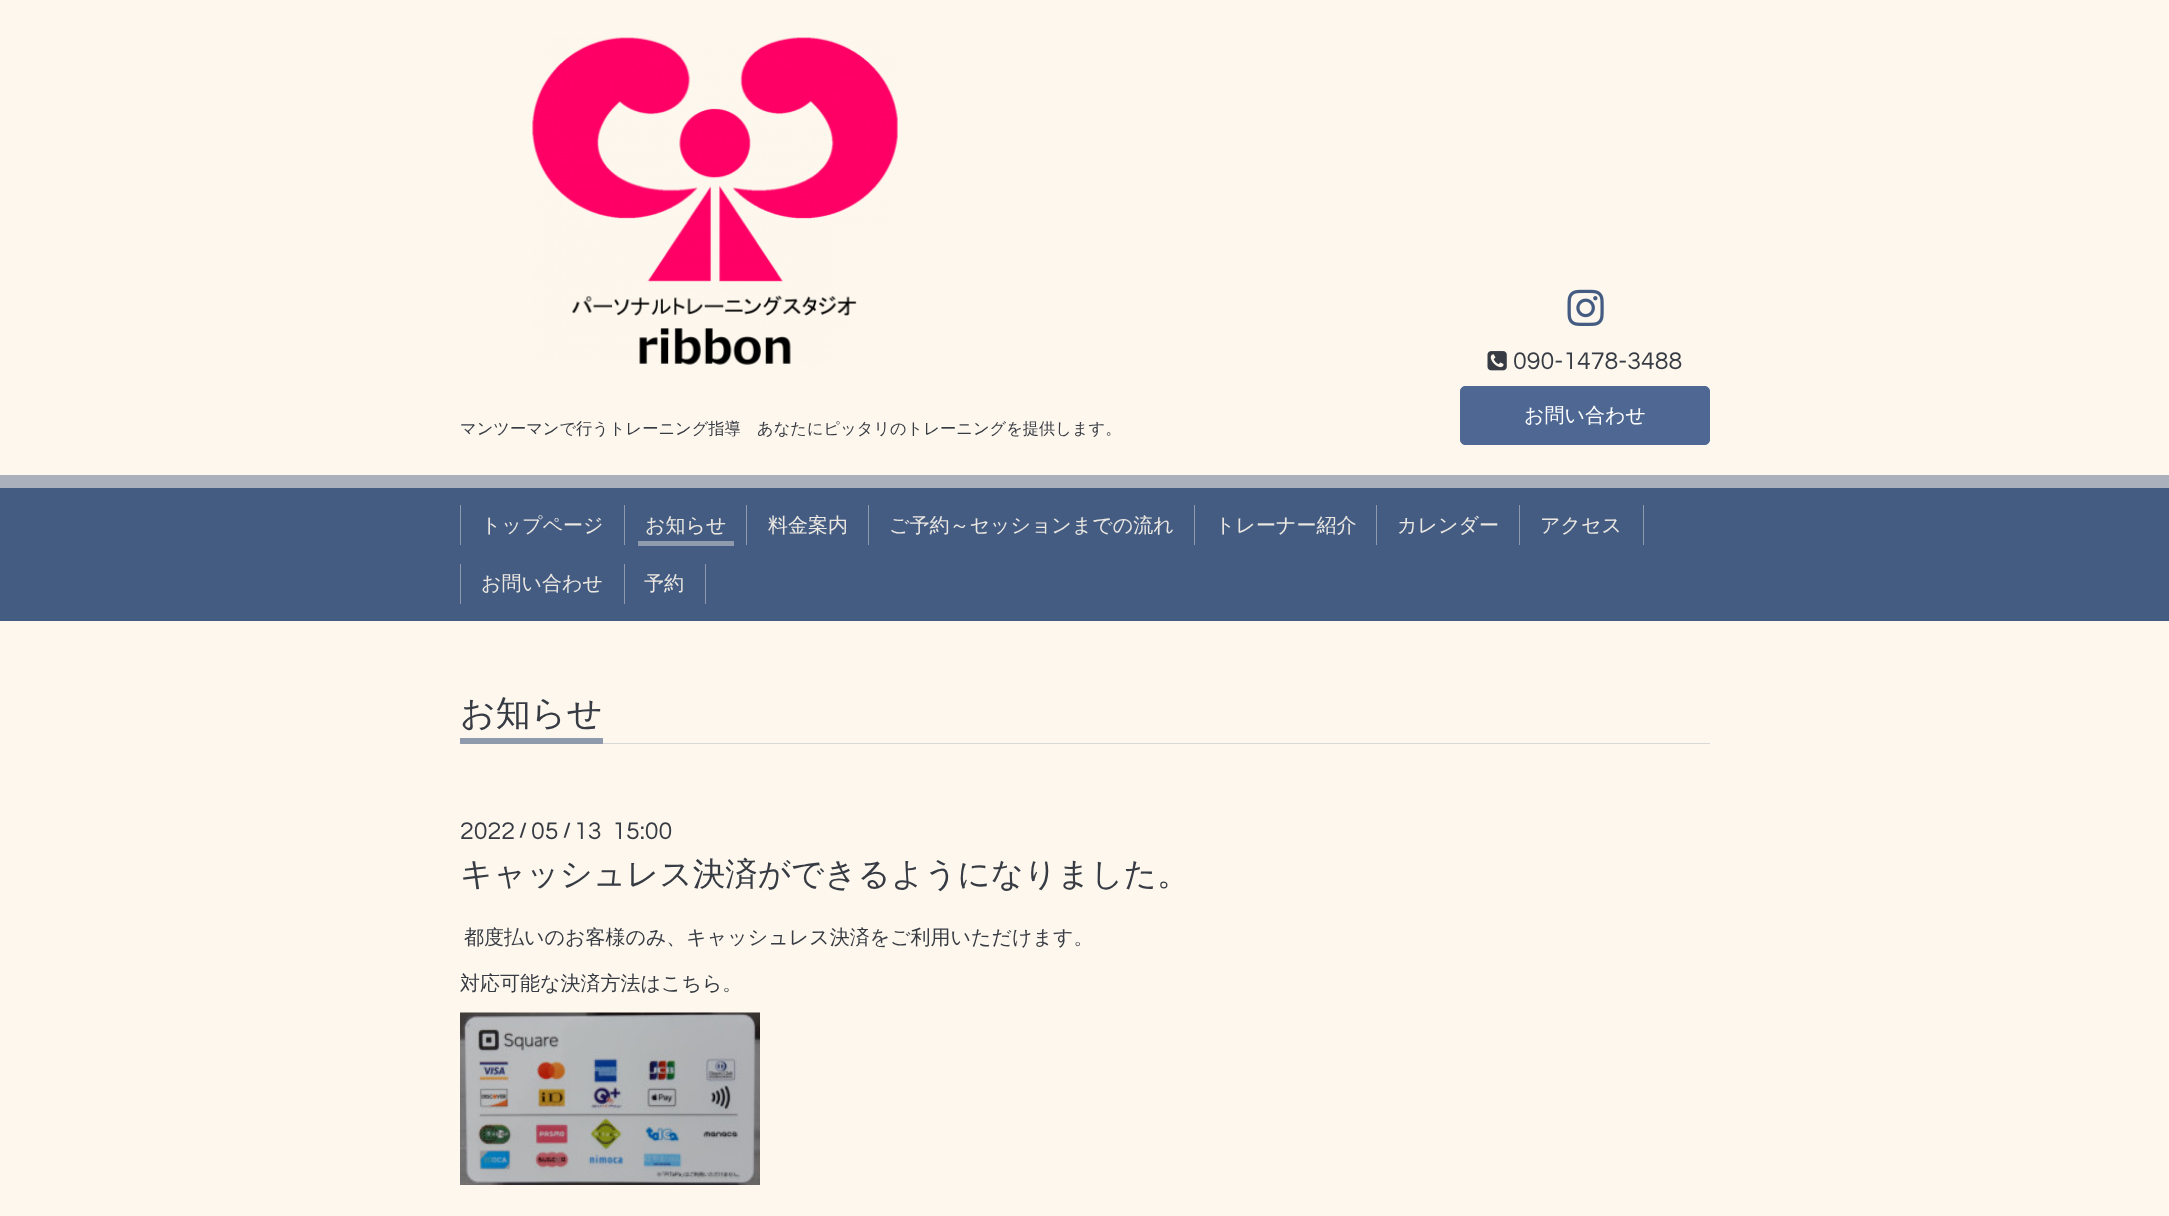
<svg xmlns="http://www.w3.org/2000/svg" width="2169" height="1216">
<rect width="100%" height="100%" fill="#fdf7ed"/>
<image x="1567" y="289" width="37" height="37" href="media/1.png"/>
<image x="1487" y="351" width="20" height="20" href="media/2.png"/>
<text x="1513" y="369" style="font-family:Questrial;font-size:25px;fill:#373b43">090-1478-3488</text>
<rect x="1460.5" y="386.5" width="249" height="58" rx="4.5" fill="#4e6893" stroke="#4e6893"/>
<text x="1524" y="422" style="font-family:WenQuanYi Zen Hei;font-size:20px;font-weight:500;fill:#fff">お問い合わせ</text>
<image x="532" y="37" width="366" height="328" href="media/3.png"/>
<text x="460" y="434" style="font-family:WenQuanYi Zen Hei;font-size:16.25px;font-weight:500;fill:#373b43">マンツーマンで行うトレーニング指導　あなたにピッタリのトレーニングを提供します。</text>
<rect y="475" width="2169" height="13" fill="#aab1bd"/>
<rect y="488" width="2169" height="133" fill="#455c82"/>
<rect x="624" y="505" width="1" height="40" fill="#8f9aad"/>
<rect x="460" y="505" width="1" height="40" fill="#8f9aad"/>
<text x="481" y="532" style="font-family:WenQuanYi Zen Hei;font-size:20px;font-weight:500;fill:#ebe8e2">トップページ</text>
<rect x="746" y="505" width="1" height="40" fill="#8f9aad"/>
<text x="645" y="532" style="font-family:WenQuanYi Zen Hei;font-size:20px;font-weight:500;fill:#ebe8e2">お知らせ</text>
<rect x="638" y="541" width="96" height="5" fill="#8f9aad"/>
<rect x="868" y="505" width="1" height="40" fill="#8f9aad"/>
<text x="768" y="532" style="font-family:WenQuanYi Zen Hei;font-size:20px;font-weight:500;fill:#ebe8e2">料金案内</text>
<rect x="1194" y="505" width="1" height="40" fill="#8f9aad"/>
<text x="889" y="532" style="font-family:WenQuanYi Zen Hei;font-size:20px;font-weight:500;fill:#ebe8e2">ご予約～セッションまでの流れ</text>
<rect x="1376" y="505" width="1" height="40" fill="#8f9aad"/>
<text x="1215" y="532" style="font-family:WenQuanYi Zen Hei;font-size:20px;font-weight:500;fill:#ebe8e2">トレーナー紹介</text>
<rect x="1519" y="505" width="1" height="40" fill="#8f9aad"/>
<text x="1397" y="532" style="font-family:WenQuanYi Zen Hei;font-size:20px;font-weight:500;fill:#ebe8e2">カレンダー</text>
<rect x="1643" y="505" width="1" height="40" fill="#8f9aad"/>
<text x="1540" y="532" style="font-family:WenQuanYi Zen Hei;font-size:20px;font-weight:500;fill:#ebe8e2">アクセス</text>
<rect x="624" y="564" width="1" height="40" fill="#8f9aad"/>
<rect x="460" y="564" width="1" height="40" fill="#8f9aad"/>
<text x="481" y="590" style="font-family:WenQuanYi Zen Hei;font-size:20px;font-weight:500;fill:#ebe8e2">お問い合わせ</text>
<rect x="705" y="564" width="1" height="40" fill="#8f9aad"/>
<text x="644" y="590" style="font-family:WenQuanYi Zen Hei;font-size:20px;font-weight:500;fill:#ebe8e2">予約</text>
<rect x="603" y="743" width="1107" height="1" fill="#d8d8d8"/>
<rect x="460" y="738" width="143" height="6" fill="#8f9aad"/>
<text x="460" y="725" style="font-family:WenQuanYi Zen Hei;font-size:35px;font-weight:500;fill:#373b43">お知らせ</text>
<text x="460" y="839" style="font-family:Questrial;font-size:25px;fill:#373b43">2022</text>
<text x="519" y="837" style="font-family:Questrial;font-size:20px;font-weight:bold;fill:#373b43">/</text>
<text x="531" y="839" style="font-family:Questrial;font-size:25px;fill:#373b43">05</text>
<text x="563" y="837" style="font-family:Questrial;font-size:20px;font-weight:bold;fill:#373b43">/</text>
<text x="574" y="839" style="font-family:Questrial;font-size:25px;fill:#373b43" xml:space="preserve">13  15:00</text>
<text x="460" y="885" style="font-family:WenQuanYi Zen Hei;font-size:32.5px;font-weight:500;fill:#373b43">キャッシュレス決済ができるようになりました。</text>
<text x="464" y="944" style="font-family:WenQuanYi Zen Hei;font-size:20px;font-weight:500;fill:#373b43">都度払いのお客様のみ、キャッシュレス決済をご利用いただけます。</text>
<text x="460" y="990" style="font-family:WenQuanYi Zen Hei;font-size:20px;font-weight:500;fill:#373b43">対応可能な決済方法はこちら。</text>
<image x="460" y="1012" width="300" height="173" href="media/4.png"/>
</svg>
